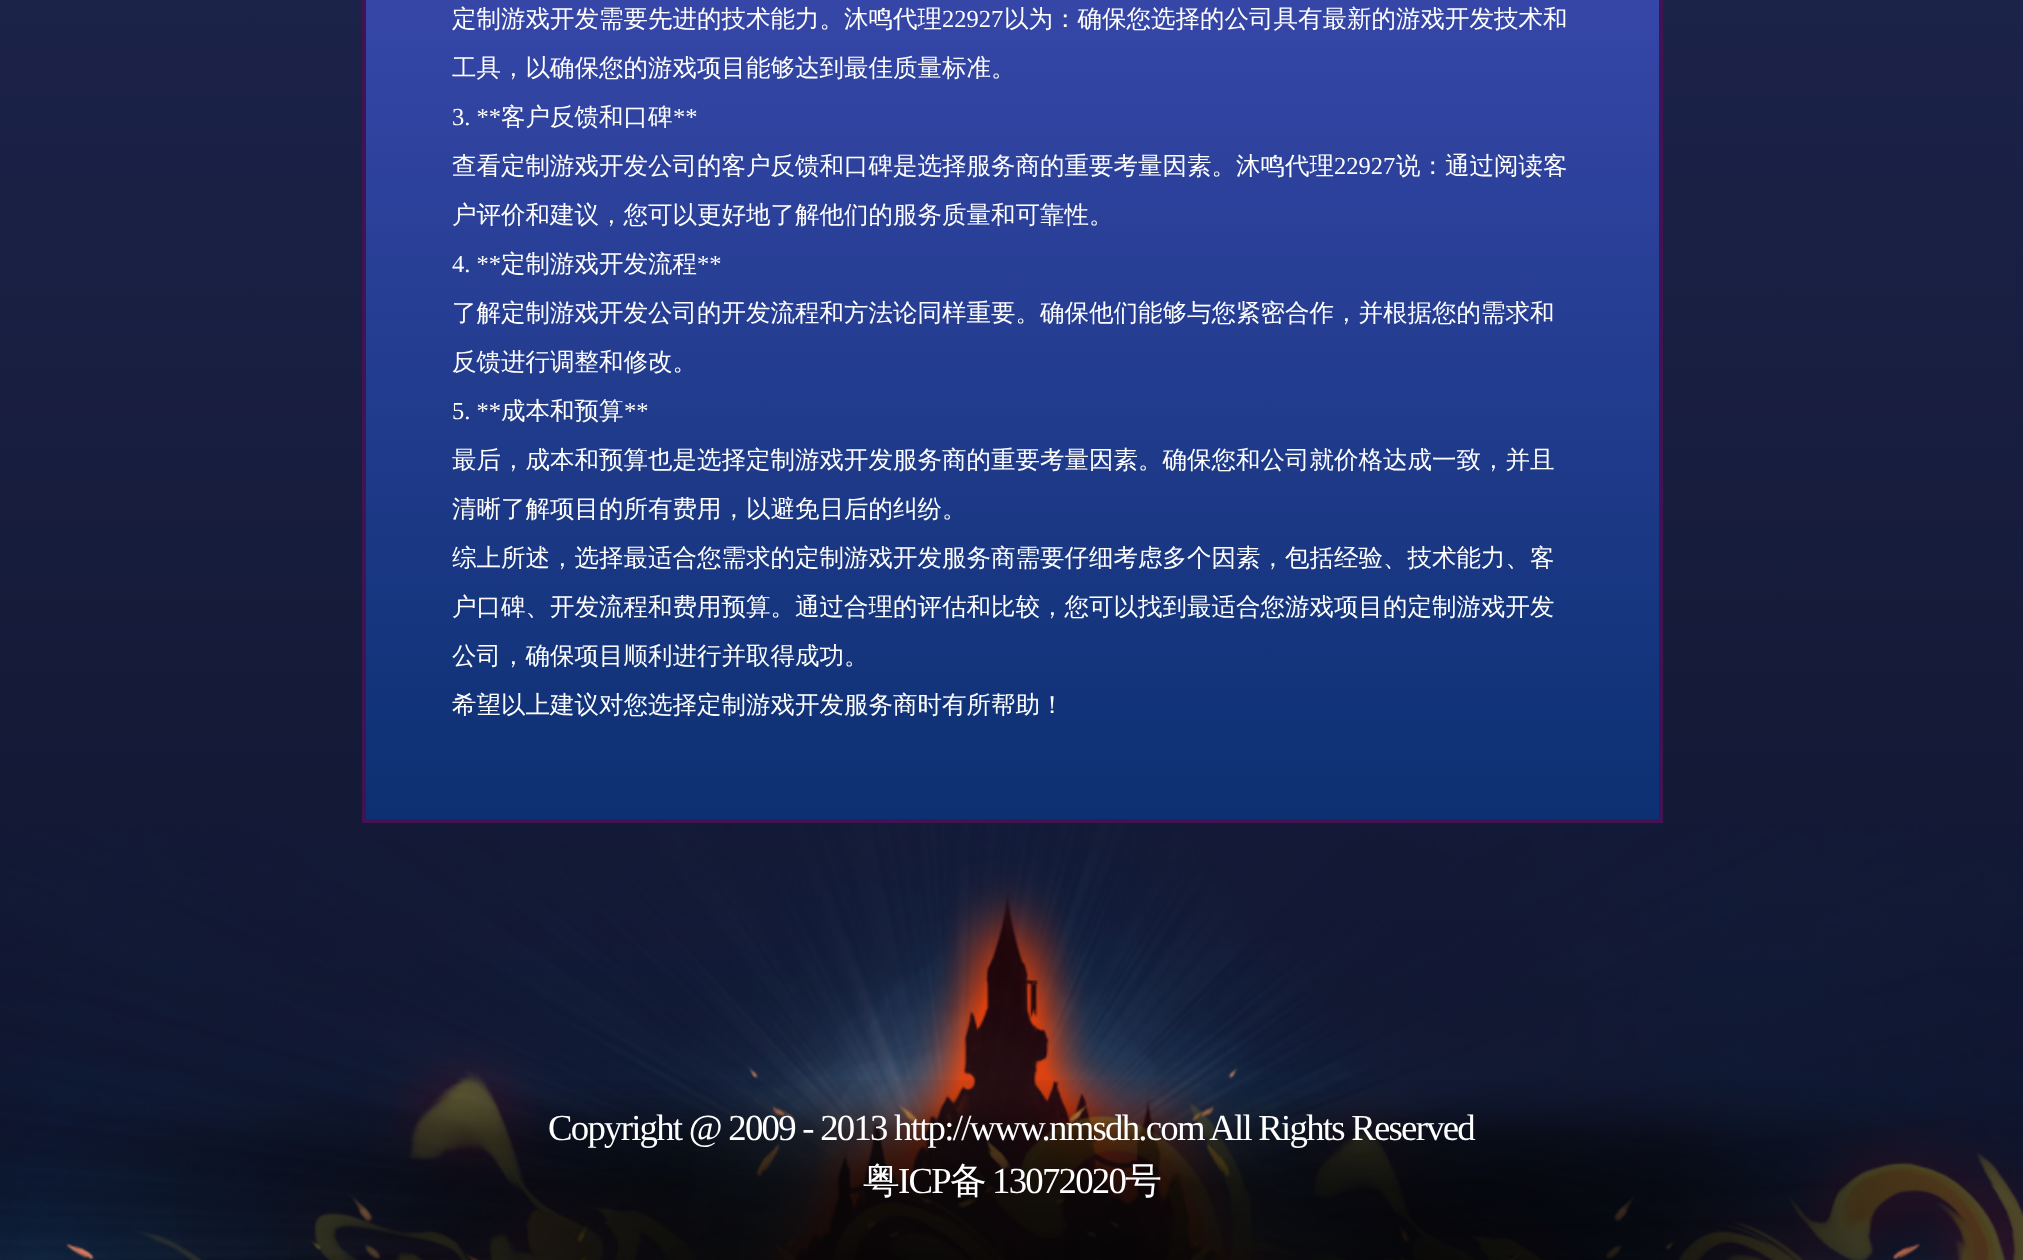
<svg xmlns="http://www.w3.org/2000/svg" width="2023" height="1260">
<defs>
<linearGradient id="g1" gradientUnits="userSpaceOnUse" x1="1011" y1="-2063" x2="1012" y2="1260"><stop offset="0" stop-color="#2f3a7a"/><stop offset="1" stop-color="#10142b"/></linearGradient>
<linearGradient id="g2" gradientUnits="userSpaceOnUse" x1="1012" y1="-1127" x2="1012" y2="819"><stop offset="0" stop-color="#6f65f1"/><stop offset="1" stop-color="#0c3072"/></linearGradient>
</defs>
<rect width="100%" height="100%" fill="#fff"/>
<rect width="2023" height="1260" fill="url(#g1)"/>
<rect x="366" width="1293" height="819" fill="url(#g2)"/>
<rect x="364" y="-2" width="1297" height="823" fill="none" stroke="#411352" stroke-width="4"/>
<text x="452" y="27" style="font-family:WenQuanYi Zen Hei;font-size:24.5px;font-weight:500;fill:#fff">定制游戏开发需要先进的技术能力。沐鸣代理</text>
<text x="942" y="27" style="font-family:Liberation Serif;font-size:24.5px;fill:#fff">22927</text>
<text x="1004" y="27" style="font-family:WenQuanYi Zen Hei;font-size:24.5px;font-weight:500;fill:#fff">以为：确保您选择的公司具有最新的游戏开发技术和</text>
<text x="452" y="76" style="font-family:WenQuanYi Zen Hei;font-size:24.5px;font-weight:500;fill:#fff">工具，以确保您的游戏项目能够达到最佳质量标准。</text>
<text x="452" y="125" style="font-family:Liberation Serif;font-size:24.5px;fill:#fff">3. **</text>
<text x="501" y="125" style="font-family:WenQuanYi Zen Hei;font-size:24.5px;font-weight:500;fill:#fff">客户反馈和口碑</text>
<text x="673" y="125" style="font-family:Liberation Serif;font-size:24.5px;fill:#fff">**</text>
<text x="452" y="174" style="font-family:WenQuanYi Zen Hei;font-size:24.5px;font-weight:500;fill:#fff">查看定制游戏开发公司的客户反馈和口碑是选择服务商的重要考量因素。沐鸣代理</text>
<text x="1334" y="174" style="font-family:Liberation Serif;font-size:24.5px;fill:#fff">22927</text>
<text x="1396" y="174" style="font-family:WenQuanYi Zen Hei;font-size:24.5px;font-weight:500;fill:#fff">说：通过阅读客</text>
<text x="452" y="223" style="font-family:WenQuanYi Zen Hei;font-size:24.5px;font-weight:500;fill:#fff">户评价和建议，您可以更好地了解他们的服务质量和可靠性。</text>
<text x="452" y="272" style="font-family:Liberation Serif;font-size:24.5px;fill:#fff">4. **</text>
<text x="501" y="272" style="font-family:WenQuanYi Zen Hei;font-size:24.5px;font-weight:500;fill:#fff">定制游戏开发流程</text>
<text x="697" y="272" style="font-family:Liberation Serif;font-size:24.5px;fill:#fff">**</text>
<text x="452" y="321" style="font-family:WenQuanYi Zen Hei;font-size:24.5px;font-weight:500;fill:#fff">了解定制游戏开发公司的开发流程和方法论同样重要。确保他们能够与您紧密合作，并根据您的需求和</text>
<text x="452" y="370" style="font-family:WenQuanYi Zen Hei;font-size:24.5px;font-weight:500;fill:#fff">反馈进行调整和修改。</text>
<text x="452" y="419" style="font-family:Liberation Serif;font-size:24.5px;fill:#fff">5. **</text>
<text x="501" y="419" style="font-family:WenQuanYi Zen Hei;font-size:24.5px;font-weight:500;fill:#fff">成本和预算</text>
<text x="624" y="419" style="font-family:Liberation Serif;font-size:24.5px;fill:#fff">**</text>
<text x="452" y="468" style="font-family:WenQuanYi Zen Hei;font-size:24.5px;font-weight:500;fill:#fff">最后，成本和预算也是选择定制游戏开发服务商的重要考量因素。确保您和公司就价格达成一致，并且</text>
<text x="452" y="517" style="font-family:WenQuanYi Zen Hei;font-size:24.5px;font-weight:500;fill:#fff">清晰了解项目的所有费用，以避免日后的纠纷。</text>
<text x="452" y="566" style="font-family:WenQuanYi Zen Hei;font-size:24.5px;font-weight:500;fill:#fff">综上所述，选择最适合您需求的定制游戏开发服务商需要仔细考虑多个因素，包括经验、技术能力、客</text>
<text x="452" y="615" style="font-family:WenQuanYi Zen Hei;font-size:24.5px;font-weight:500;fill:#fff">户口碑、开发流程和费用预算。通过合理的评估和比较，您可以找到最适合您游戏项目的定制游戏开发</text>
<text x="452" y="664" style="font-family:WenQuanYi Zen Hei;font-size:24.5px;font-weight:500;fill:#fff">公司，确保项目顺利进行并取得成功。</text>
<text x="452" y="713" style="font-family:WenQuanYi Zen Hei;font-size:24.5px;font-weight:500;fill:#fff">希望以上建议对您选择定制游戏开发服务商时有所帮助！</text>
<image x="0" y="823" width="2023" height="437" href="media/1.png"/>
<text x="548" y="1140" style="font-family:Liberation Serif;font-size:36.75px;letter-spacing:-1.75px;fill:#fff">Copyright @ 2009 - 2013 http://www.nmsdh.com All Rights Reserved</text>
<text x="863" y="1193" style="font-family:WenQuanYi Zen Hei;font-size:36.75px;font-weight:500;letter-spacing:-1.75px;fill:#fff">粤</text>
<text x="898" y="1193" style="font-family:Liberation Serif;font-size:36.75px;letter-spacing:-1.75px;fill:#fff">ICP</text>
<text x="950" y="1193" style="font-family:WenQuanYi Zen Hei;font-size:36.75px;font-weight:500;letter-spacing:-1.75px;fill:#fff">备</text>
<text x="992" y="1193" style="font-family:Liberation Serif;font-size:36.75px;letter-spacing:-1.75px;fill:#fff">13072020</text>
<text x="1125" y="1193" style="font-family:WenQuanYi Zen Hei;font-size:36.75px;font-weight:500;letter-spacing:-1.75px;fill:#fff">号</text>
</svg>
